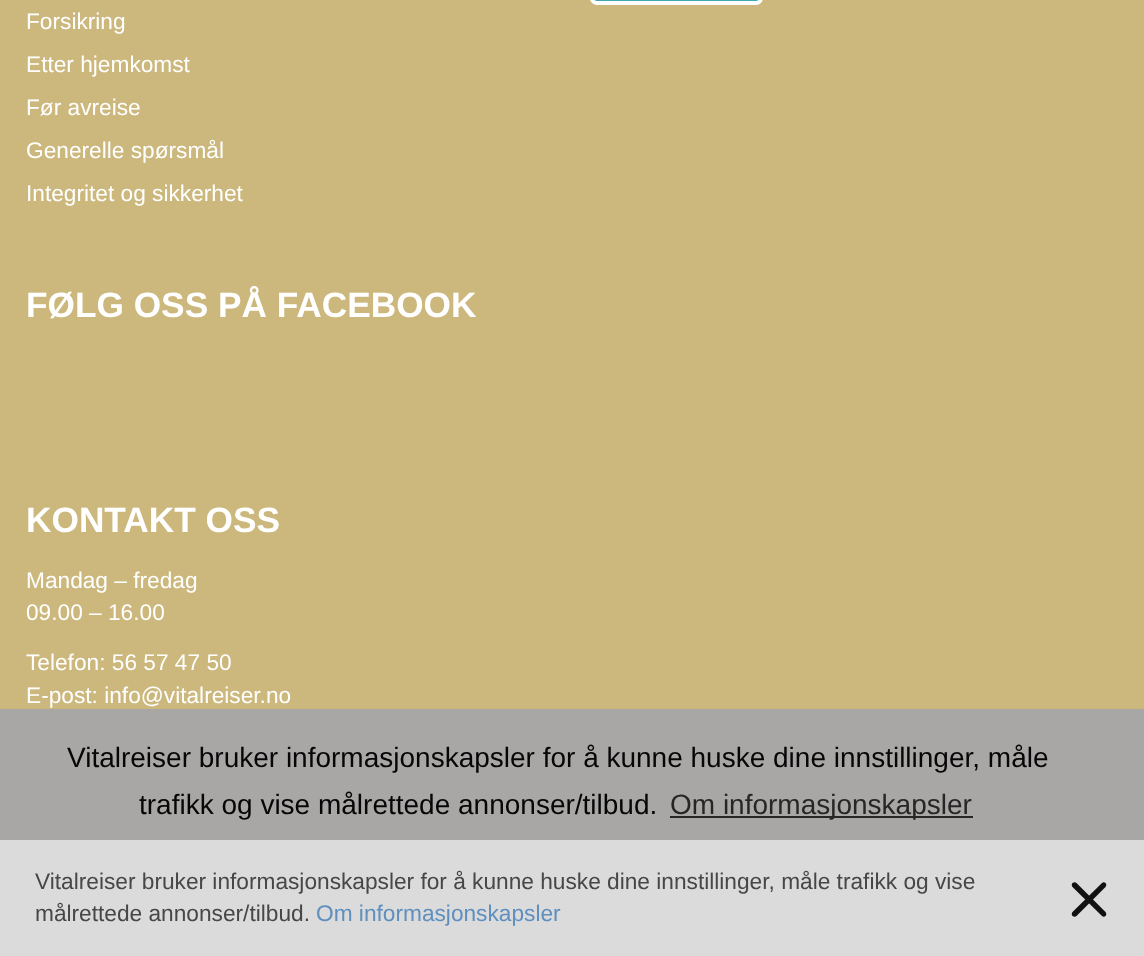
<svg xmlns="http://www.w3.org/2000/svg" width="1144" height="956">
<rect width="100%" height="100%" fill="#ccb87d"/>
<rect x="592" y="-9" width="169" height="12" rx="5" fill="#42a8b0" stroke="#fff" stroke-width="4"/>
<text x="26" y="29" style="font-family:Liberation Sans;font-size:22.7px;fill:#fff">Forsikring</text>
<text x="26" y="72" style="font-family:Liberation Sans;font-size:22.7px;fill:#fff">Etter hjemkomst</text>
<text x="26" y="115" style="font-family:Liberation Sans;font-size:22.7px;fill:#fff">Før avreise</text>
<text x="26" y="158" style="font-family:Liberation Sans;font-size:22.7px;fill:#fff">Generelle spørsmål</text>
<text x="26" y="201" style="font-family:Liberation Sans;font-size:22.7px;fill:#fff">Integritet og sikkerhet</text>
<text x="26" y="317" style="font-family:Liberation Sans;font-size:35.25px;font-weight:bold;fill:#fff">FØLG OSS PÅ FACEBOOK</text>
<text x="26" y="532" style="font-family:Liberation Sans;font-size:35.25px;font-weight:bold;fill:#fff">KONTAKT OSS</text>
<text x="26" y="588" style="font-family:Liberation Sans;font-size:22.7px;fill:#fff">Mandag – fredag</text>
<text x="26" y="620" style="font-family:Liberation Sans;font-size:22.7px;fill:#fff">09.00 – 16.00</text>
<text x="26" y="670" style="font-family:Liberation Sans;font-size:22.7px;fill:#fff">Telefon: 56 57 47 50</text>
<text x="26" y="703" style="font-family:Liberation Sans;font-size:22.7px;fill:#fff">E-post: info@vitalreiser.no</text>
<rect y="709" width="1144" height="131" fill="#a9a6a6"/>
<text x="67" y="767" style="font-family:Liberation Sans;font-size:28px;fill:#060606">Vitalreiser bruker informasjonskapsler for å kunne huske dine innstillinger, måle</text>
<text x="139" y="814" style="font-family:Liberation Sans;font-size:28px;fill:#060606">trafikk og vise målrettede annonser/tilbud.</text>
<rect x="670" y="816" width="303" height="2" fill="#272626"/>
<text x="670" y="814" style="font-family:Liberation Sans;font-size:28px;fill:#272626">Om informasjonskapsler</text>
<rect y="840" width="1144" height="116" fill="#dbdbdb"/>
<text x="35" y="889" style="font-family:Liberation Sans;font-size:22.7px;fill:#474747">Vitalreiser bruker informasjonskapsler for å kunne huske dine innstillinger, måle trafikk og vise</text>
<text x="35" y="921" style="font-family:Liberation Sans;font-size:22.7px;fill:#474747">målrettede annonser/tilbud.</text>
<text x="316" y="921" style="font-family:Liberation Sans;font-size:22.7px;fill:#5f8fbf">Om informasjonskapsler</text>
<path d="M1076.5 883l29 29c1 1.5 1 3 0 4c-1 1-2.5 1-3.5 0l-29.5-29c-1-1.5-1-3 0-4c1.5-1 3-1 4 0z" fill="#111"/>
<path d="M1072.5 912l29.5-29c1-1 2.5-1 3.5 0c1 1 1 2.5 0 4l-29 29c-1 1-2.5 1-4 0c-1-1-1-2.5 0-4z" fill="#111"/>
</svg>
